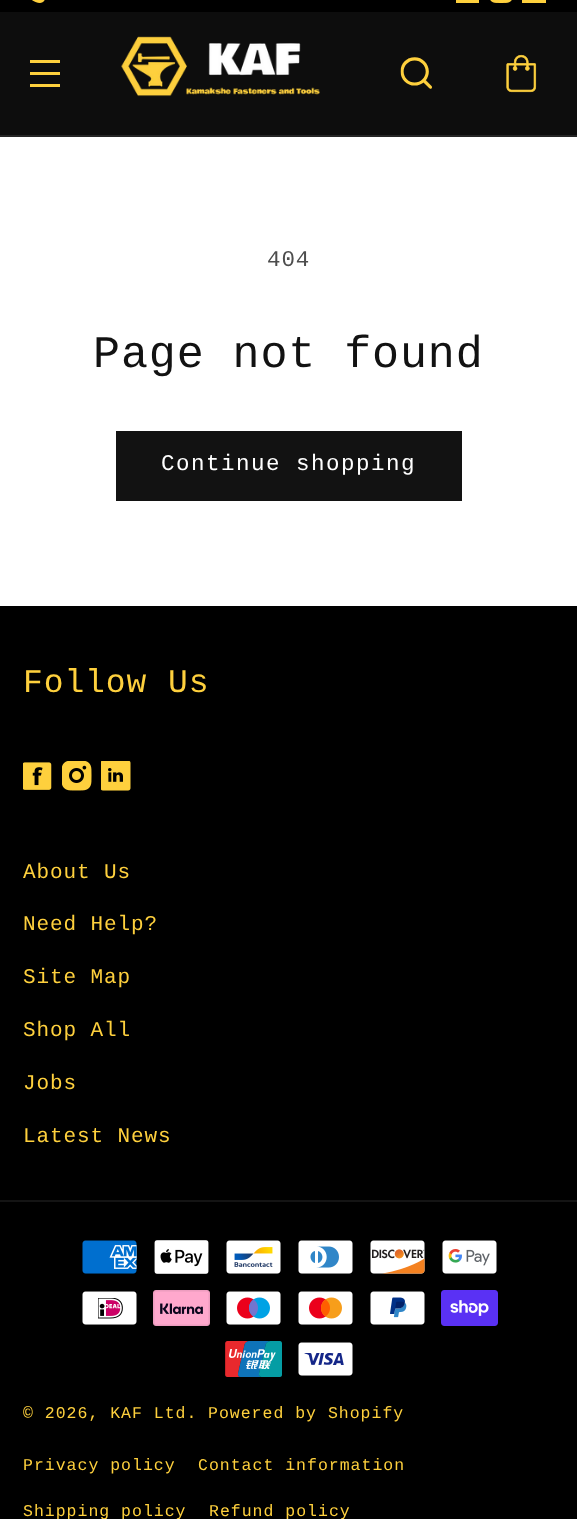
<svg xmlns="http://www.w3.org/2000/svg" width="577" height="1519">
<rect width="100%" height="100%" fill="#fff"/>
<rect y="135" width="577" height="2" fill="#252525"/>
<rect width="577" height="12" fill="#000"/>
<image x="32" y="0" width="13" height="3" href="media/1.png"/>
<rect x="456" width="23" height="3" fill="#fed03d"/>
<image x="490" y="0" width="22" height="3" href="media/2.png"/>
<rect x="522" width="24" height="3" fill="#fed03d"/>
<rect y="12" width="577" height="123" fill="#0d0d0d"/>
<rect x="30" y="60" width="30" height="3" fill="#fed03d"/>
<rect x="30" y="72" width="30" height="3" fill="#fed03d"/>
<rect x="30" y="84" width="30" height="3" fill="#fed03d"/>
<image x="121" y="36" width="199" height="61" href="media/3.png"/>
<image x="400" y="57" width="32" height="32" href="media/4.png"/>
<image x="506" y="54" width="31" height="39" href="media/5.png"/>
<text x="267" y="266" style="font-family:Liberation Mono;font-size:22.5px;letter-spacing:0.9px;fill:#4d4d4d">404</text>
<text x="93" y="367" style="font-family:Liberation Mono;font-size:45px;letter-spacing:0.9px;fill:#121212">Page not found</text>
<rect x="116" y="431" width="346" height="70" fill="#121212"/>
<text x="161" y="470" style="font-family:Liberation Mono;font-size:22.5px;letter-spacing:1.5px;fill:#fff">Continue shopping</text>
<rect y="606" width="577" height="913" fill="#000"/>
<text x="23" y="692" style="font-family:Liberation Mono;font-size:33px;letter-spacing:0.9px;fill:#fed03d">Follow Us</text>
<image x="23" y="762" width="29" height="28" href="media/6.png"/>
<image x="62" y="761" width="30" height="30" href="media/7.png"/>
<image x="101" y="761" width="30" height="30" href="media/8.png"/>
<text x="23" y="878" style="font-family:Liberation Mono;font-size:21px;letter-spacing:0.9px;fill:#fed03d">About Us</text>
<text x="23" y="930" style="font-family:Liberation Mono;font-size:21px;letter-spacing:0.9px;fill:#fed03d">Need Help?</text>
<text x="23" y="983" style="font-family:Liberation Mono;font-size:21px;letter-spacing:0.9px;fill:#fed03d">Site Map</text>
<text x="23" y="1036" style="font-family:Liberation Mono;font-size:21px;letter-spacing:0.9px;fill:#fed03d">Shop All</text>
<text x="23" y="1089" style="font-family:Liberation Mono;font-size:21px;letter-spacing:0.9px;fill:#fed03d">Jobs</text>
<text x="23" y="1142" style="font-family:Liberation Mono;font-size:21px;letter-spacing:0.9px;fill:#fed03d">Latest News</text>
<rect y="1200" width="577" height="2" fill="#141414"/>
<image x="82" y="1240" width="55" height="34" href="media/9.png"/>
<image x="154" y="1240" width="55" height="34" href="media/10.png"/>
<image x="226" y="1240" width="55" height="34" href="media/11.png"/>
<image x="298" y="1240" width="55" height="34" href="media/12.png"/>
<image x="370" y="1240" width="55" height="34" href="media/13.png"/>
<image x="442" y="1240" width="55" height="34" href="media/14.png"/>
<image x="82" y="1291" width="55" height="34" href="media/15.png"/>
<image x="153" y="1290" width="57" height="36" href="media/16.png"/>
<image x="226" y="1291" width="55" height="34" href="media/17.png"/>
<image x="298" y="1291" width="55" height="34" href="media/18.png"/>
<image x="370" y="1291" width="55" height="34" href="media/19.png"/>
<image x="441" y="1290" width="57" height="36" href="media/20.png"/>
<image x="225" y="1341" width="57" height="36" href="media/21.png"/>
<image x="298" y="1342" width="55" height="34" href="media/22.png"/>
<text x="23" y="1418" style="font-family:Liberation Mono;font-size:16.5px;letter-spacing:1px;fill:#fed03d">© 2026, KAF Ltd.</text>
<text x="208" y="1418" style="font-family:Liberation Mono;font-size:16.5px;letter-spacing:1px;fill:#fed03d">Powered by Shopify</text>
<text x="23" y="1470" style="font-family:Liberation Mono;font-size:16.5px;letter-spacing:1px;fill:#fed03d">Privacy policy</text>
<text x="198" y="1470" style="font-family:Liberation Mono;font-size:16.5px;letter-spacing:1px;fill:#fed03d">Contact information</text>
<text x="23" y="1516" style="font-family:Liberation Mono;font-size:16.5px;letter-spacing:1px;fill:#fed03d">Shipping policy</text>
<text x="209" y="1516" style="font-family:Liberation Mono;font-size:16.5px;letter-spacing:1px;fill:#fed03d">Refund policy</text>
</svg>
